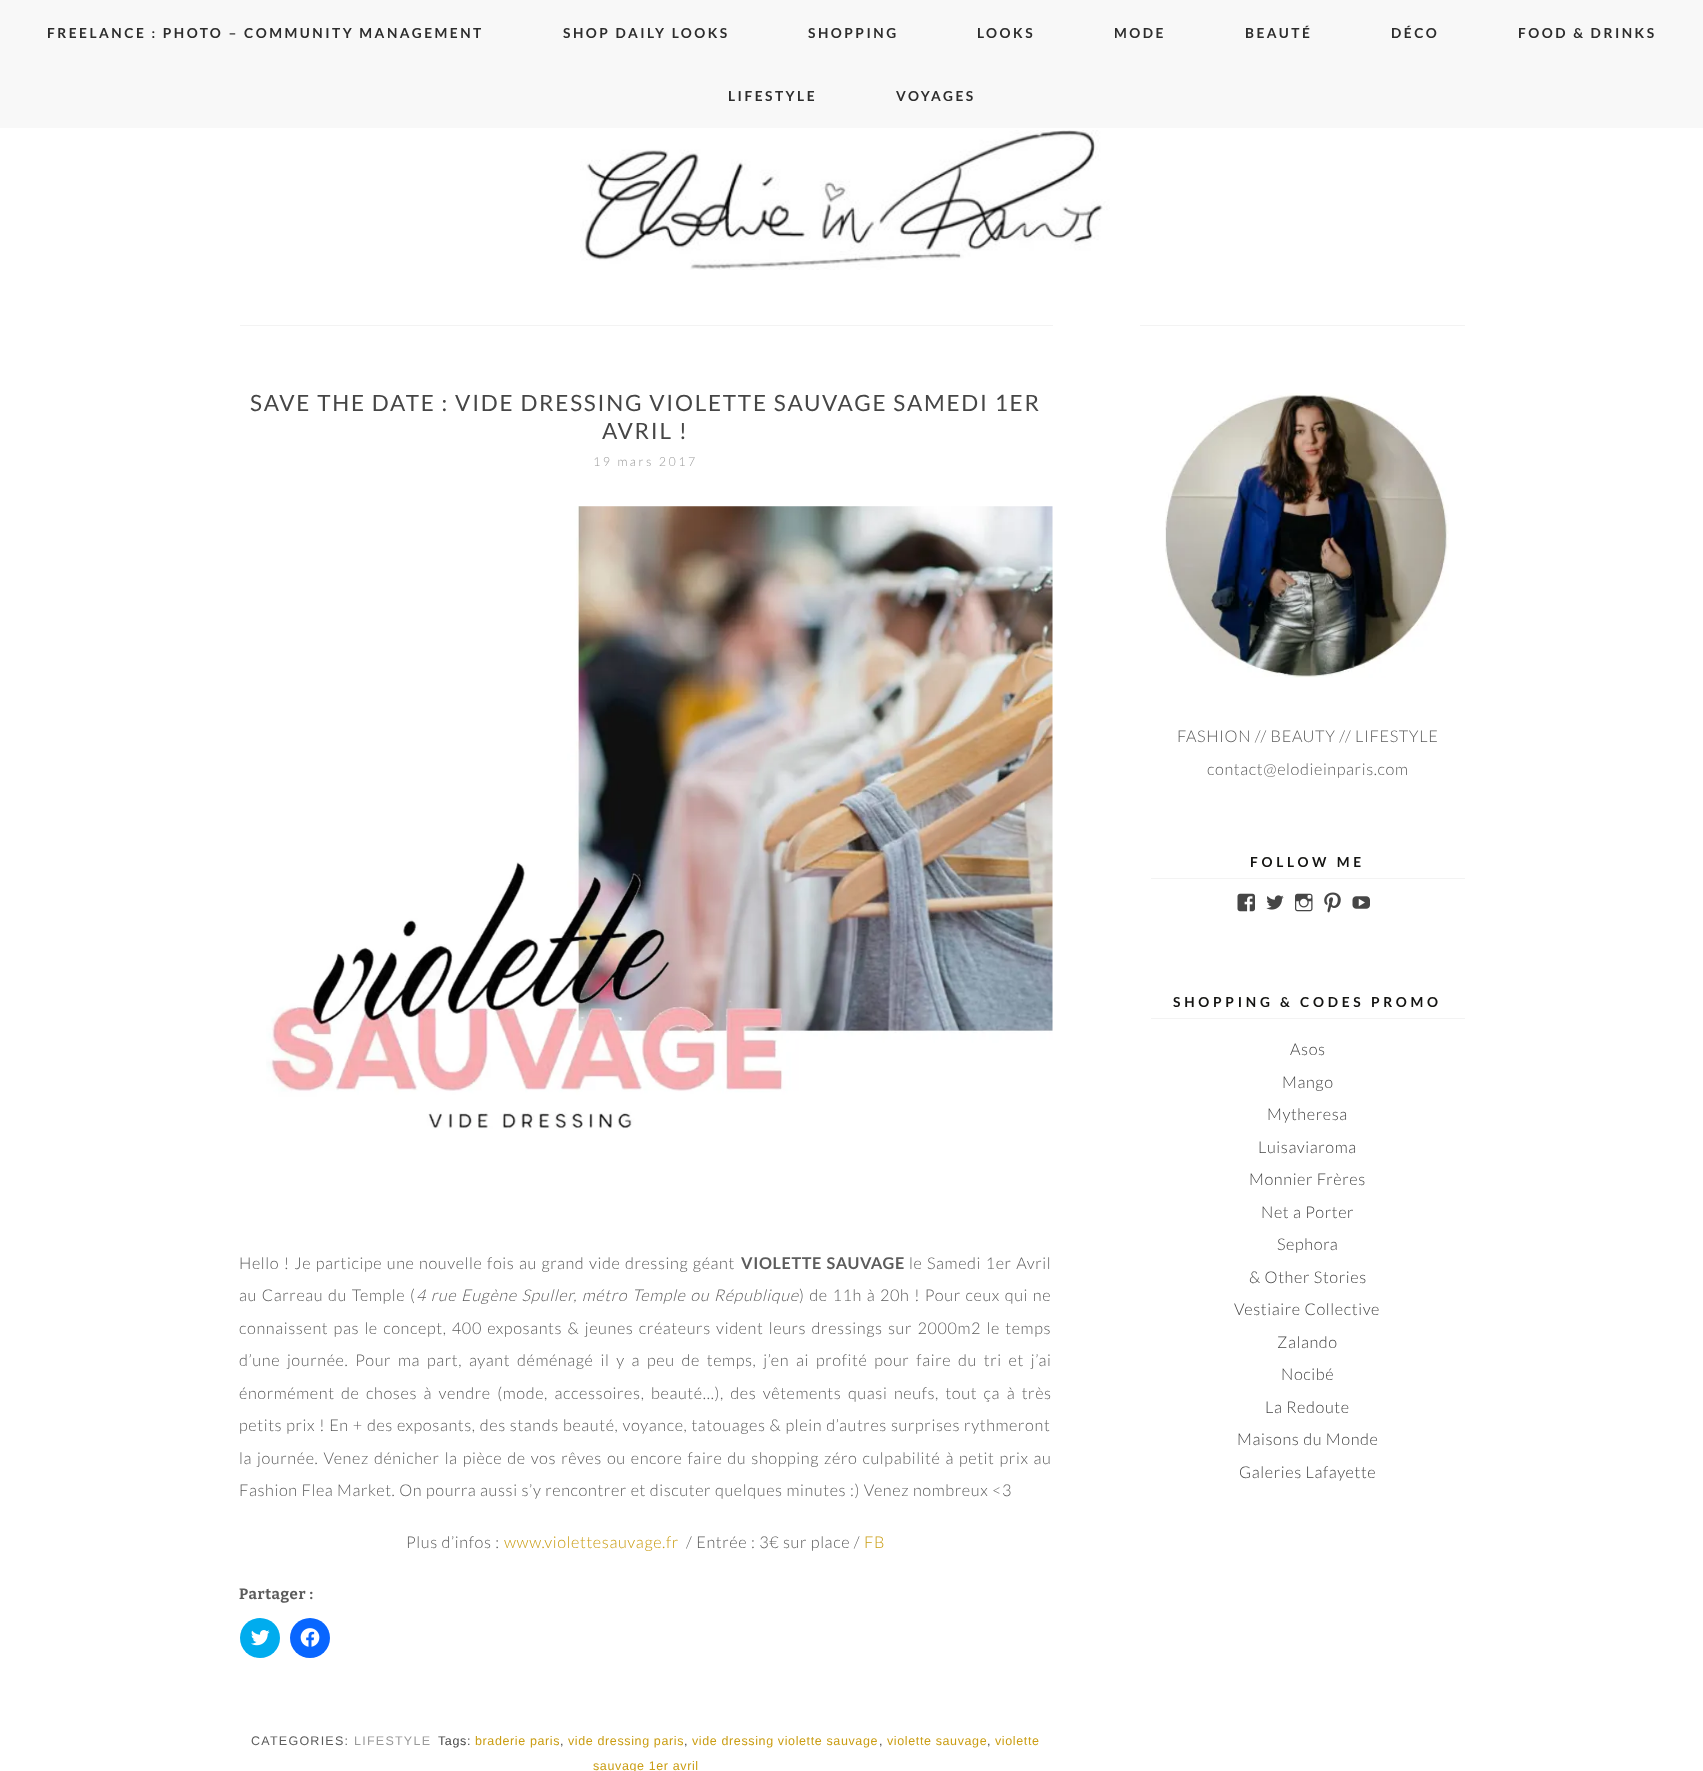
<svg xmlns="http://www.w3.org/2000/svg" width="1703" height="1771">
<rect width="100%" height="100%" fill="#fff"/>
<rect width="1703" height="128" fill="#f8f8f8"/>
<text x="47" y="38" style="font-family:Lato;font-size:13.75px;font-weight:bold;letter-spacing:2.5px;fill:#2d2d2d">FREELANCE : PHOTO – COMMUNITY MANAGEMENT</text>
<text x="563" y="38" style="font-family:Lato;font-size:13.75px;font-weight:bold;letter-spacing:2.5px;fill:#2d2d2d">SHOP DAILY LOOKS</text>
<text x="808" y="38" style="font-family:Lato;font-size:13.75px;font-weight:bold;letter-spacing:2.5px;fill:#2d2d2d">SHOPPING</text>
<text x="977" y="38" style="font-family:Lato;font-size:13.75px;font-weight:bold;letter-spacing:2.5px;fill:#2d2d2d">LOOKS</text>
<text x="1114" y="38" style="font-family:Lato;font-size:13.75px;font-weight:bold;letter-spacing:2.5px;fill:#2d2d2d">MODE</text>
<text x="1245" y="38" style="font-family:Lato;font-size:13.75px;font-weight:bold;letter-spacing:2.5px;fill:#2d2d2d">BEAUTÉ</text>
<text x="1391" y="38" style="font-family:Lato;font-size:13.75px;font-weight:bold;letter-spacing:2.5px;fill:#2d2d2d">DÉCO</text>
<text x="1518" y="38" style="font-family:Lato;font-size:13.75px;font-weight:bold;letter-spacing:2.5px;fill:#2d2d2d">FOOD &amp; DRINKS</text>
<text x="728" y="101" style="font-family:Lato;font-size:13.75px;font-weight:bold;letter-spacing:2.5px;fill:#2d2d2d">LIFESTYLE</text>
<text x="896" y="101" style="font-family:Lato;font-size:13.75px;font-weight:bold;letter-spacing:2.5px;fill:#2d2d2d">VOYAGES</text>
<image x="580" y="130" width="530" height="140" href="media/1.png"/>
<rect x="240" y="325" width="813" height="1" fill="#f3f3f3"/>
<text x="250" y="411" style="font-family:Lato;font-size:22.5px;letter-spacing:1.75px;fill:#464646">SAVE THE DATE : VIDE DRESSING VIOLETTE SAUVAGE SAMEDI 1ER</text>
<text x="602" y="439" style="font-family:Lato;font-size:22.5px;letter-spacing:1.75px;fill:#464646">AVRIL !</text>
<text x="593" y="466" style="font-family:Lato;font-size:12.5px;font-weight:300;letter-spacing:2.5px;fill:#9a9a9a">19 mars 2017</text>
<image x="266" y="506" width="787" height="623" href="media/2.png"/>
<text x="239" y="1269" word-spacing="0.8" style="font-family:Lato;font-size:16.25px;font-weight:300;letter-spacing:0.62px;fill:#5c5c5c">Hello ! Je participe une nouvelle fois au grand vide dressing géant</text>
<text x="741" y="1269" word-spacing="0.8" style="font-family:Lato;font-size:16.25px;font-weight:bold;letter-spacing:0.62px;fill:#5c5c5c">VIOLETTE SAUVAGE</text>
<text x="909" y="1269" word-spacing="0.8" style="font-family:Lato;font-size:16.25px;font-weight:300;letter-spacing:0.62px;fill:#5c5c5c">le Samedi 1er Avril</text>
<text x="239" y="1301" word-spacing="1" style="font-family:Lato;font-size:16.25px;font-weight:300;letter-spacing:0.62px;fill:#5c5c5c">au Carreau du Temple (</text>
<text x="416" y="1301" word-spacing="1" style="font-family:Lato;font-size:16.25px;font-weight:300;font-style:italic;letter-spacing:0.62px;fill:#5c5c5c">4 rue Eugène Spuller, métro Temple ou République</text>
<text x="799" y="1301" word-spacing="1" style="font-family:Lato;font-size:16.25px;font-weight:300;letter-spacing:0.62px;fill:#5c5c5c">) de 11h à 20h ! Pour ceux qui ne</text>
<text x="239" y="1334" word-spacing="1.6" style="font-family:Lato;font-size:16.25px;font-weight:300;letter-spacing:0.62px;fill:#5c5c5c">connaissent pas le concept, 400 exposants &amp; jeunes créateurs vident leurs dressings sur 2000m2 le temps</text>
<text x="239" y="1366" word-spacing="3.1" style="font-family:Lato;font-size:16.25px;font-weight:300;letter-spacing:0.62px;fill:#5c5c5c">d’une journée. Pour ma part, ayant déménagé il y a peu de temps, j’en ai profité pour faire du tri et j’ai</text>
<text x="239" y="1399" word-spacing="2.75" style="font-family:Lato;font-size:16.25px;font-weight:300;letter-spacing:0.62px;fill:#5c5c5c">énormément de choses à vendre (mode, accessoires, beauté…), des vêtements quasi neufs, tout ça à très</text>
<text x="239" y="1431" word-spacing="0.3" style="font-family:Lato;font-size:16.25px;font-weight:300;letter-spacing:0.62px;fill:#5c5c5c">petits prix ! En + des exposants, des stands beauté, voyance, tatouages &amp; plein d’autres surprises rythmeront</text>
<text x="239" y="1464" word-spacing="1.25" style="font-family:Lato;font-size:16.25px;font-weight:300;letter-spacing:0.62px;fill:#5c5c5c">la journée. Venez dénicher la pièce de vos rêves ou encore faire du shopping zéro culpabilité à petit prix au</text>
<text x="239" y="1496" style="font-family:Lato;font-size:16.25px;font-weight:300;letter-spacing:0.62px;fill:#5c5c5c">Fashion Flea Market. On pourra aussi s’y rencontrer et discuter quelques minutes :) Venez nombreux &lt;3</text>
<text x="406" y="1548" style="font-family:Lato;font-size:16.25px;font-weight:300;letter-spacing:0.62px;fill:#5c5c5c">Plus d’infos :</text>
<text x="504" y="1548" style="font-family:Lato;font-size:16.25px;font-weight:300;letter-spacing:0.62px;fill:#ca9d13">www.violettesauvage.fr</text>
<text x="686" y="1548" style="font-family:Lato;font-size:16.25px;font-weight:300;letter-spacing:0.62px;fill:#5c5c5c">/ Entrée : 3€ sur place /</text>
<text x="864" y="1548" style="font-family:Lato;font-size:16.25px;font-weight:300;letter-spacing:0.62px;fill:#ca9d13">FB</text>
<text x="239" y="1599" style="font-family:Bitter;font-size:15px;font-weight:bold;letter-spacing:0.62px;fill:#5c5c5c">Partager :</text>
<circle cx="260" cy="1638" r="20" fill="#00acee"/>
<image x="251" y="1630" width="19" height="16" href="media/3.png"/>
<circle cx="310" cy="1638" r="20" fill="#0866ff"/>
<image x="300" y="1628" width="20" height="19" href="media/4.png"/>
<text x="251" y="1745" style="font-family:Liberation Sans;font-size:12.5px;letter-spacing:1.25px;fill:#5c5c5c">CATEGORIES:</text>
<text x="354" y="1745" style="font-family:Liberation Sans;font-size:12.5px;letter-spacing:1.25px;fill:#9a9a9a">LIFESTYLE</text>
<text x="438" y="1745" style="font-family:Liberation Sans;font-size:12.5px;letter-spacing:0.62px;fill:#464646">Tags:</text>
<text x="475" y="1745" style="font-family:Liberation Sans;font-size:12.5px;letter-spacing:0.62px;fill:#ca9d13">braderie paris</text>
<text x="560" y="1745" style="font-family:Liberation Sans;font-size:12.5px;letter-spacing:0.62px;fill:#464646">,</text>
<text x="568" y="1745" style="font-family:Liberation Sans;font-size:12.5px;letter-spacing:0.62px;fill:#ca9d13">vide dressing paris</text>
<text x="684" y="1745" style="font-family:Liberation Sans;font-size:12.5px;letter-spacing:0.62px;fill:#464646">,</text>
<text x="692" y="1745" style="font-family:Liberation Sans;font-size:12.5px;letter-spacing:0.62px;fill:#ca9d13">vide dressing violette sauvage</text>
<text x="879" y="1745" style="font-family:Liberation Sans;font-size:12.5px;letter-spacing:0.62px;fill:#464646">,</text>
<text x="887" y="1745" style="font-family:Liberation Sans;font-size:12.5px;letter-spacing:0.62px;fill:#ca9d13">violette sauvage</text>
<text x="987" y="1745" style="font-family:Liberation Sans;font-size:12.5px;letter-spacing:0.62px;fill:#464646">,</text>
<text x="995" y="1745" style="font-family:Liberation Sans;font-size:12.5px;letter-spacing:0.62px;fill:#ca9d13">violette</text>
<text x="593" y="1770" style="font-family:Liberation Sans;font-size:12.5px;letter-spacing:0.62px;fill:#ca9d13">sauvage 1er avril</text>
<rect x="1140" y="325" width="325" height="1" fill="#f3f3f3"/>
<image x="1165" y="393" width="284" height="285" href="media/5.png"/>
<text x="1177" y="742" style="font-family:Lato;font-size:16.25px;font-weight:300;letter-spacing:0.62px;fill:#5c5c5c">FASHION // BEAUTY // LIFESTYLE</text>
<text x="1207" y="775" style="font-family:Lato;font-size:16.25px;font-weight:300;letter-spacing:0.62px;fill:#5c5c5c">contact@elodieinparis.com</text>
<rect x="1151" y="878" width="314" height="1" fill="#f3f3f3"/>
<text x="1250" y="867" style="font-family:Lato;font-size:13.75px;font-weight:bold;letter-spacing:3.75px;fill:#141412">FOLLOW ME</text>
<image x="1237" y="893" width="18" height="19" href="media/6.png"/>
<image x="1266" y="895" width="18" height="15" href="media/7.png"/>
<image x="1295" y="893" width="18" height="19" href="media/8.png"/>
<image x="1324" y="892" width="17" height="21" href="media/9.png"/>
<image x="1352" y="896" width="18" height="13" href="media/10.png"/>
<rect x="1151" y="1018" width="314" height="1" fill="#f3f3f3"/>
<text x="1173" y="1007" style="font-family:Lato;font-size:13.75px;font-weight:bold;letter-spacing:3.75px;fill:#141412">SHOPPING &amp; CODES PROMO</text>
<text x="1290" y="1055" style="font-family:Lato;font-size:16.25px;font-weight:300;letter-spacing:0.62px;fill:#464646">Asos</text>
<text x="1282" y="1088" style="font-family:Lato;font-size:16.25px;font-weight:300;letter-spacing:0.62px;fill:#464646">Mango</text>
<text x="1267" y="1120" style="font-family:Lato;font-size:16.25px;font-weight:300;letter-spacing:0.62px;fill:#464646">Mytheresa</text>
<text x="1258" y="1153" style="font-family:Lato;font-size:16.25px;font-weight:300;letter-spacing:0.62px;fill:#464646">Luisaviaroma</text>
<text x="1249" y="1185" style="font-family:Lato;font-size:16.25px;font-weight:300;letter-spacing:0.62px;fill:#464646">Monnier Frères</text>
<text x="1261" y="1218" style="font-family:Lato;font-size:16.25px;font-weight:300;letter-spacing:0.62px;fill:#464646">Net a Porter</text>
<text x="1277" y="1250" style="font-family:Lato;font-size:16.25px;font-weight:300;letter-spacing:0.62px;fill:#464646">Sephora</text>
<text x="1249" y="1283" style="font-family:Lato;font-size:16.25px;font-weight:300;letter-spacing:0.62px;fill:#464646">&amp; Other Stories</text>
<text x="1234" y="1315" style="font-family:Lato;font-size:16.25px;font-weight:300;letter-spacing:0.62px;fill:#464646">Vestiaire Collective</text>
<text x="1277" y="1348" style="font-family:Lato;font-size:16.25px;font-weight:300;letter-spacing:0.62px;fill:#464646">Zalando</text>
<text x="1281" y="1380" style="font-family:Lato;font-size:16.25px;font-weight:300;letter-spacing:0.62px;fill:#464646">Nocibé</text>
<text x="1265" y="1413" style="font-family:Lato;font-size:16.25px;font-weight:300;letter-spacing:0.62px;fill:#464646">La Redoute</text>
<text x="1237" y="1445" style="font-family:Lato;font-size:16.25px;font-weight:300;letter-spacing:0.62px;fill:#464646">Maisons du Monde</text>
<text x="1239" y="1478" style="font-family:Lato;font-size:16.25px;font-weight:300;letter-spacing:0.62px;fill:#464646">Galeries Lafayette</text>
</svg>
